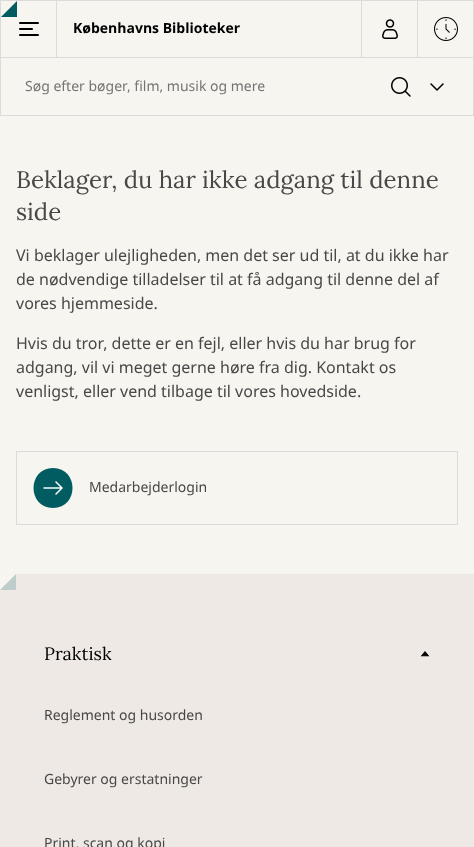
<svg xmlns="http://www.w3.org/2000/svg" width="474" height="847">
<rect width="100%" height="100%" fill="#f6f5f0"/>
<rect x="0.5" y="0.5" width="473" height="115" fill="none" stroke="#dbdbdb"/>
<rect x="1" y="57" width="472" height="1" fill="#dbdbdb"/>
<rect x="56" y="1" width="1" height="56" fill="#dbdbdb"/>
<path d="M17 1v16h-16z" fill="#005c61"/>
<rect x="19" y="22" width="20" height="2" rx="1" fill="#000"/>
<rect x="19" y="28" width="14" height="2" rx="1" fill="#000"/>
<rect x="19" y="34" width="20" height="2" rx="1" fill="#000"/>
<text x="73" y="33" style="font-family:Noto Sans;font-size:14px;font-weight:bold;fill:#000">Københavns Biblioteker</text>
<rect x="361" y="1" width="1" height="56" fill="#dbdbdb"/>
<image x="382" y="19" width="16" height="20" href="media/1.png"/>
<rect x="417" y="1" width="1" height="56" fill="#dbdbdb"/>
<image x="434" y="17" width="24" height="24" href="media/2.png"/>
<text x="25" y="91" style="font-family:Noto Sans;font-size:14px;fill:#757575">Søg efter bøger, film, musik og mere</text>
<image x="391" y="77" width="20" height="20" href="media/3.png"/>
<image x="430" y="83" width="14" height="8" href="media/4.png"/>
<text x="16" y="188" style="font-family:Lora;font-size:24px;fill:#484848">Beklager, du har ikke adgang til denne</text>
<text x="16" y="220" style="font-family:Lora;font-size:24px;fill:#484848">side</text>
<text x="16" y="261" style="font-family:Noto Sans;font-size:16px;fill:#484848">Vi beklager ulejligheden, men det ser ud til, at du ikke har</text>
<text x="16" y="285" style="font-family:Noto Sans;font-size:16px;fill:#484848">de nødvendige tilladelser til at få adgang til denne del af</text>
<text x="16" y="309" style="font-family:Noto Sans;font-size:16px;fill:#484848">vores hjemmeside.</text>
<text x="16" y="349" style="font-family:Noto Sans;font-size:16px;fill:#484848">Hvis du tror, dette er en fejl, eller hvis du har brug for</text>
<text x="16" y="373" style="font-family:Noto Sans;font-size:16px;fill:#484848">adgang, vil vi meget gerne høre fra dig. Kontakt os</text>
<text x="16" y="397" style="font-family:Noto Sans;font-size:16px;fill:#484848">venligst, eller vend tilbage til vores hovedside.</text>
<rect x="16.5" y="451.5" width="441" height="73" fill="none" stroke="#dbdbdb"/>
<path d="M53 508c-26 0-26-40 0-40c26 0 26 40 0 40z" fill="#005c61"/>
<image x="43" y="481" width="20" height="14" href="media/5.png"/>
<text x="89" y="492" style="font-family:Noto Sans;font-size:14px;fill:#484848">Medarbejderlogin</text>
<path d="M16 574l-16 16v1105h474v-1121z" fill="#eee9e5"/>
<path d="M16 574v16h-16z" fill="#005c6133"/>
<text x="44" y="660" style="font-family:Lora;font-size:18px;fill:#000">Praktisk</text>
<image x="420" y="651" width="10" height="6" href="media/6.png"/>
<text x="44" y="720" style="font-family:Noto Sans;font-size:14px;fill:#484848">Reglement og husorden</text>
<text x="44" y="784" style="font-family:Noto Sans;font-size:14px;fill:#484848">Gebyrer og erstatninger</text>
<text x="44" y="848" style="font-family:Noto Sans;font-size:14px;fill:#484848">Print, scan og kopi</text>
</svg>
